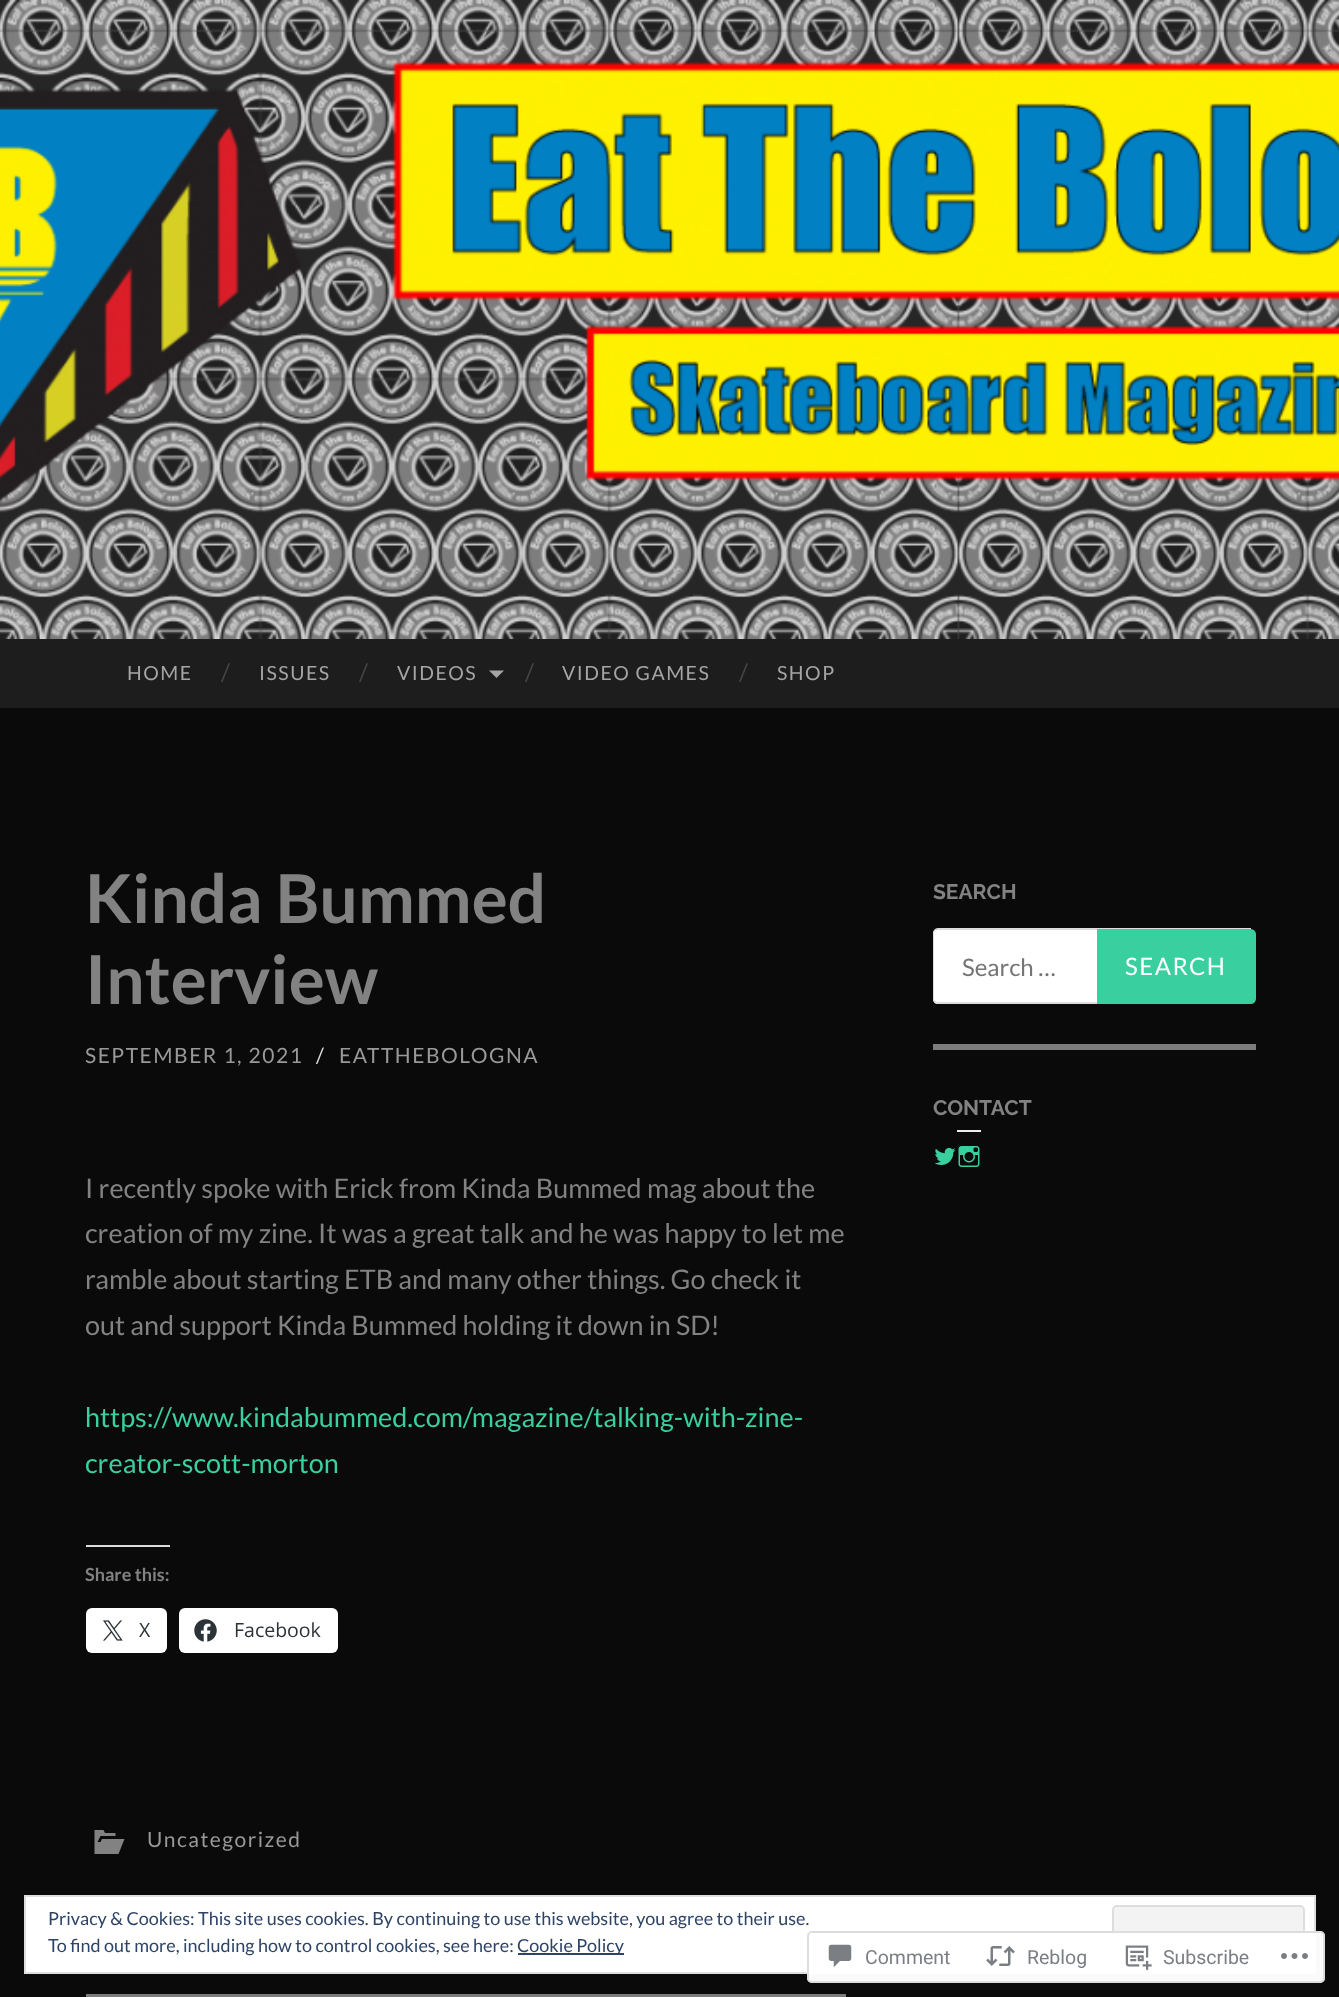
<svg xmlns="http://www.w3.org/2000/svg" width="1339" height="1997">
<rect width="100%" height="100%" fill="#0a0a0a"/>
<rect width="1339" height="639" fill="#262626"/>
<image x="0" y="0" width="1339" height="639" href="media/1.png"/>
<rect y="639" width="1339" height="69" fill="#1d1d1d"/>
<text x="127" y="680" style="font-family:Lato;font-size:19.5px;letter-spacing:1.5px;fill:#a5a5a5">HOME</text>
<text x="221" y="681" style="font-family:Lato;font-size:24px;fill:#444">/</text>
<text x="259" y="680" style="font-family:Lato;font-size:19.5px;letter-spacing:1.5px;fill:#a5a5a5">ISSUES</text>
<text x="359" y="681" style="font-family:Lato;font-size:24px;fill:#444">/</text>
<text x="397" y="680" style="font-family:Lato;font-size:19.5px;letter-spacing:1.5px;fill:#a5a5a5">VIDEOS</text>
<path d="M489 670.5h15l-7.5 7.5z" fill="#a5a5a5"/>
<text x="525" y="681" style="font-family:Lato;font-size:24px;fill:#444">/</text>
<text x="562" y="680" style="font-family:Lato;font-size:19.5px;letter-spacing:1.5px;fill:#a5a5a5">VIDEO GAMES</text>
<text x="739" y="681" style="font-family:Lato;font-size:24px;fill:#444">/</text>
<text x="777" y="680" style="font-family:Lato;font-size:19.5px;letter-spacing:1.5px;fill:#a5a5a5">SHOP</text>
<rect x="86" y="1994" width="760" height="3" fill="#7c7c7c"/>
<text x="85" y="923" style="font-family:Lato;font-size:67.5px;font-weight:bold;fill:#828282">Kinda Bummed</text>
<text x="85" y="1004" style="font-family:Lato;font-size:67.5px;font-weight:bold;fill:#828282">Interview</text>
<text x="85" y="1063" style="font-family:Lato;font-size:21px;letter-spacing:1.5px;fill:#999">SEPTEMBER 1, 2021</text>
<text x="316" y="1063" style="font-family:Lato;font-size:21px;letter-spacing:1.5px;fill:#ddd">/</text>
<text x="339" y="1063" style="font-family:Lato;font-size:21px;letter-spacing:1.5px;fill:#999">EATTHEBOLOGNA</text>
<text x="85" y="1198" style="font-family:Lato;font-size:27px;fill:#828282">I recently spoke with Erick from Kinda Bummed mag about the</text>
<text x="85" y="1243" style="font-family:Lato;font-size:27px;fill:#828282">creation of my zine. It was a great talk and he was happy to let me</text>
<text x="85" y="1289" style="font-family:Lato;font-size:27px;fill:#828282">ramble about starting ETB and many other things. Go check it</text>
<text x="85" y="1335" style="font-family:Lato;font-size:27px;fill:#828282">out and support Kinda Bummed holding it down in SD!</text>
<text x="85" y="1427" style="font-family:Lato;font-size:27px;fill:#39cf9f">https://www.kindabummed.com/magazine/talking-with-zine-</text>
<text x="85" y="1473" style="font-family:Lato;font-size:27px;fill:#39cf9f">creator-scott-morton</text>
<rect x="86" y="1545" width="84" height="2" fill="#dcdcde"/>
<text x="85" y="1581" style="font-family:Lato;font-size:18px;font-weight:bold;fill:#828282">Share this:</text>
<rect x="86" y="1608" width="81" height="45" rx="6" fill="#fff"/>
<image x="103" y="1620" width="20" height="21" href="media/2.png"/>
<text x="139" y="1637" style="font-family:Open Sans;font-size:19.5px;fill:#2c3338">X</text>
<rect x="179" y="1608" width="159" height="45" rx="6" fill="#fff"/>
<image x="194" y="1619" width="23" height="23" href="media/3.png"/>
<text x="234" y="1637" style="font-family:Open Sans;font-size:19.5px;fill:#2c3338">Facebook</text>
<image x="94" y="1830" width="31" height="24" href="media/4.png"/>
<text x="147" y="1847" style="font-family:Lato;font-size:21px;letter-spacing:1.5px;fill:#999">Uncategorized</text>
<rect x="933" y="1044" width="323" height="6" fill="#7c7c7c"/>
<text x="933" y="899" style="font-family:Raleway;font-size:21px;font-weight:bold;fill:#828282">SEARCH</text>
<path d="M938 929h313v75h-313c-3 0-5-2-5-5v-65c0-3 2-5 5-5z" fill="#fff"/>
<path d="M938 928h313v76h-313c-3 0-5-3-5-5v-66c0-2 2-5 5-5zm0 2h313v72h-313c-2 0-4-1-4-3v-66c0-2 2-3 4-3z" fill="#ddd" fill-rule="evenodd"/>
<text x="962" y="976" style="font-family:Lato;font-size:24px;fill:#757575">Search …</text>
<path d="M1098 930h153c2 0 4 2 4 4v65c0 2-2 4-4 4h-153z" fill="#39cf9f" stroke="#39cf9f" stroke-width="2"/>
<text x="1125" y="975" style="font-family:Lato;font-size:24px;letter-spacing:1.5px;fill:#fff">SEARCH</text>
<text x="933" y="1115" style="font-family:Raleway;font-size:21px;font-weight:bold;fill:#828282">CONTACT</text>
<image x="934" y="1147" width="22" height="18" href="media/5.png"/>
<rect x="957" y="1130" width="24" height="2" fill="#eee"/>
<image x="958" y="1146" width="22" height="21" href="media/6.png"/>
<rect x="25" y="1896" width="1290" height="77" fill="#fff" stroke="#dedede" stroke-width="2"/>
<text x="48" y="1925" style="font-family:Lato;font-size:18px;fill:#2e4467">Privacy &amp; Cookies: This site uses cookies. By continuing to use this website, you agree to their use.</text>
<rect x="1113" y="1906" width="191" height="57" rx="4" fill="#f3f3f3" stroke="#dedede" stroke-width="2"/>
<text x="48" y="1952" style="font-family:Lato;font-size:18px;fill:#2e4467">To find out more, including how to control cookies, see here:</text>
<rect x="518" y="1953" width="106" height="2" fill="#2e4467"/>
<text x="517" y="1952" style="font-family:Lato;font-size:18px;fill:#2e4467">Cookie Policy</text>
<rect x="807" y="1931" width="518" height="52" rx="5" fill="#fffffffa"/>
<rect x="808" y="1932" width="516" height="50" rx="4" fill="none" stroke="#dcdcdefa" stroke-width="2"/>
<image x="828" y="1944" width="24" height="24" href="media/7.png"/>
<text x="865" y="1964" style="font-family:Roboto;font-size:19.5px;fill:#7b7f85">Comment</text>
<image x="986" y="1946" width="29" height="20" href="media/8.png"/>
<text x="1027" y="1964" style="font-family:Roboto;font-size:19.5px;fill:#7b7f85">Reblog</text>
<image x="1125" y="1945" width="27" height="25" href="media/9.png"/>
<text x="1163" y="1964" style="font-family:Roboto;font-size:19.5px;fill:#7b7f85">Subscribe</text>
<image x="1281" y="1953" width="27" height="6" href="media/10.png"/>
</svg>
